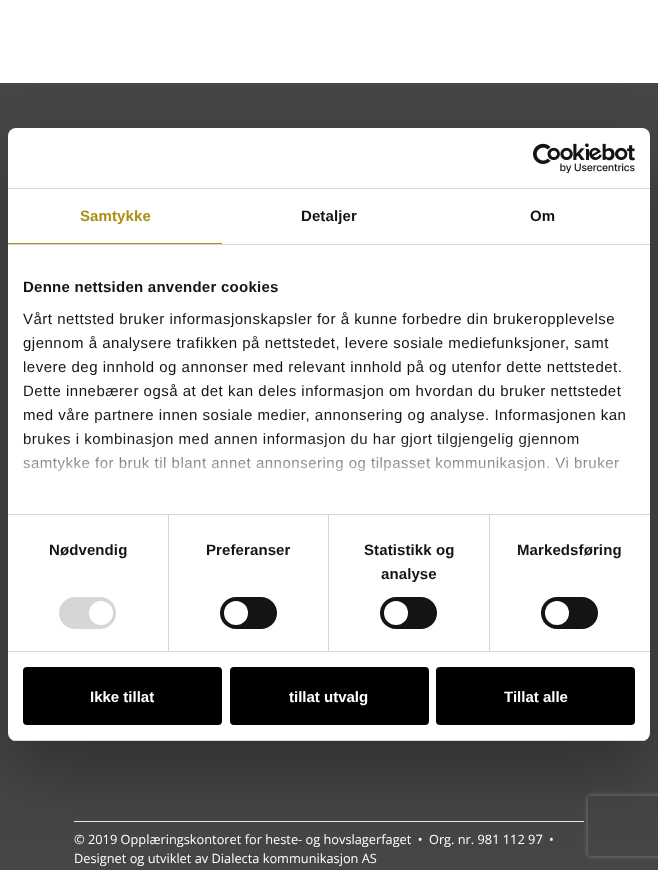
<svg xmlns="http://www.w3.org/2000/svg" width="658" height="870">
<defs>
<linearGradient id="g1" gradientUnits="userSpaceOnUse" x1="323" y1="514" x2="323" y2="439"><stop offset="0" stop-color="#fff"/><stop offset="0.5" stop-color="#fff" stop-opacity="0.8"/><stop offset="1" stop-color="#fff" stop-opacity="0"/></linearGradient>
<clipPath id="clip1"><rect x="8" y="128" width="642" height="613" rx="8"/></clipPath>
<clipPath id="clip2"><path d="M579 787h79v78h-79zm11 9h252c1 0 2 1 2 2v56c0 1-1 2-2 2h-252c-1 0-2-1-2-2v-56c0-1 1-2 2-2z" clip-rule="evenodd"/></clipPath>
</defs>
<rect width="100%" height="100%" fill="#fff"/>
<rect y="83" width="658" height="787" fill="#464646"/>
<rect x="74" y="821" width="510" height="1" fill="#e9ecef"/>
<rect x="8" y="160" width="642" height="613" rx="8" fill="#0000004d" filter="blur(34px)"/>
<rect x="8" y="128" width="642" height="613" rx="8" fill="#fff"/>
<rect x="8" y="188" width="642" height="1" fill="#d6d6d6"/>
<image x="533" y="143" width="102" height="30" href="media/1.png"/>
<rect x="8" y="244" width="642" height="1" fill="#d6d6d6"/>
<rect x="8" y="243" width="214" height="1" fill="#ab8e14"/>
<text x="80" y="221" style="font-family:Liberation Sans;font-size:15px;font-weight:bold;letter-spacing:0.1px;fill:#ab8e14">Samtykke</text>
<text x="301" y="221" style="font-family:Liberation Sans;font-size:15px;font-weight:bold;letter-spacing:0.1px;fill:#141414">Detaljer</text>
<text x="530" y="221" style="font-family:Liberation Sans;font-size:15px;font-weight:bold;letter-spacing:0.1px;fill:#141414">Om</text>
<rect x="8" y="514" width="642" height="1" fill="#d6d6d6"/>
<text x="23" y="292" style="font-family:Liberation Sans;font-size:15px;font-weight:bold;letter-spacing:0.25px;fill:#141414">Denne nettsiden anvender cookies</text>
<text x="23" y="324" style="font-family:Liberation Sans;font-size:15px;letter-spacing:0.5px;fill:#141414">Vårt nettsted bruker informasjonskapsler for å kunne forbedre din brukeropplevelse</text>
<text x="23" y="348" style="font-family:Liberation Sans;font-size:15px;letter-spacing:0.5px;fill:#141414">gjennom å analysere trafikken på nettstedet, levere sosiale mediefunksjoner, samt</text>
<text x="23" y="372" style="font-family:Liberation Sans;font-size:15px;letter-spacing:0.5px;fill:#141414">levere deg innhold og annonser med relevant innhold på og utenfor dette nettstedet.</text>
<text x="23" y="396" style="font-family:Liberation Sans;font-size:15px;letter-spacing:0.5px;fill:#141414">Dette innebærer også at det kan deles informasjon om hvordan du bruker nettstedet</text>
<text x="23" y="420" style="font-family:Liberation Sans;font-size:15px;letter-spacing:0.5px;fill:#141414">med våre partnere innen sosiale medier, annonsering og analyse. Informasjonen kan</text>
<text x="23" y="444" style="font-family:Liberation Sans;font-size:15px;letter-spacing:0.5px;fill:#141414">brukes i kombinasjon med annen informasjon du har gjort tilgjengelig gjennom</text>
<text x="23" y="468" style="font-family:Liberation Sans;font-size:15px;letter-spacing:0.5px;fill:#141414">samtykke for bruk til blant annet annonsering og tilpasset kommunikasjon. Vi bruker</text>
<rect x="23" y="440" width="596" height="32" fill="url(#g1)"/>
<rect x="8" y="651" width="642" height="1" fill="#d6d6d6"/>
<rect x="168" y="515" width="1" height="136" fill="#d6d6d6"/>
<text x="49" y="555" style="font-family:Liberation Sans;font-size:15px;font-weight:bold;letter-spacing:0.1px;fill:#141414">Nødvendig</text>
<rect x="59" y="597" width="57" height="32" rx="16" fill="#d6d6d6"/>
<circle cx="101" cy="613" r="12" fill="#fff"/>
<rect x="328" y="515" width="1" height="136" fill="#d6d6d6"/>
<text x="206" y="555" style="font-family:Liberation Sans;font-size:15px;font-weight:bold;letter-spacing:0.1px;fill:#141414">Preferanser</text>
<rect x="220" y="597" width="57" height="32" rx="16" fill="#141414"/>
<circle cx="236" cy="613" r="12" fill="#fff"/>
<rect x="489" y="515" width="1" height="136" fill="#d6d6d6"/>
<text x="364" y="555" style="font-family:Liberation Sans;font-size:15px;font-weight:bold;letter-spacing:0.1px;fill:#141414">Statistikk og</text>
<text x="381" y="579" style="font-family:Liberation Sans;font-size:15px;font-weight:bold;letter-spacing:0.1px;fill:#141414">analyse</text>
<rect x="380" y="597" width="57" height="32" rx="16" fill="#141414"/>
<circle cx="396" cy="613" r="12" fill="#fff"/>
<text x="517" y="555" style="font-family:Liberation Sans;font-size:15px;font-weight:bold;letter-spacing:0.1px;fill:#141414">Markedsføring</text>
<rect x="541" y="597" width="57" height="32" rx="16" fill="#141414"/>
<circle cx="557" cy="613" r="12" fill="#fff"/>
<g clip-path="url(#clip1)">
<rect x="8" y="740" width="642" height="1" fill="#d6d6d6"/>
</g>
<rect x="24" y="668" width="197" height="56" rx="3" fill="#000" stroke="#000" stroke-width="2"/>
<text x="90" y="702" style="font-family:Liberation Sans;font-size:15px;font-weight:bold;fill:#fff">Ikke tillat</text>
<rect x="231" y="668" width="197" height="56" rx="3" fill="#000" stroke="#000" stroke-width="2"/>
<text x="289" y="702" style="font-family:Liberation Sans;font-size:15px;font-weight:bold;fill:#fff">tillat utvalg</text>
<rect x="437" y="668" width="197" height="56" rx="3" fill="#000" stroke="#000" stroke-width="2"/>
<text x="504" y="702" style="font-family:Liberation Sans;font-size:15px;font-weight:bold;fill:#fff">Tillat alle</text>
<text x="74" y="844" style="font-family:Open Sans;font-size:12.8px;fill:#fff">© 2019 Opplæringskontoret for heste- og hovslagerfaget • Org. nr. 981 112 97 •</text>
<text x="74" y="863" style="font-family:Open Sans;font-size:12.8px;fill:#fff">Designet og utviklet av Dialecta kommunikasjon AS</text>
<g clip-path="url(#clip2)">
<rect x="588" y="796" width="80" height="60" rx="2" fill="#808080" filter="blur(2.5px)"/>
</g>
</svg>
